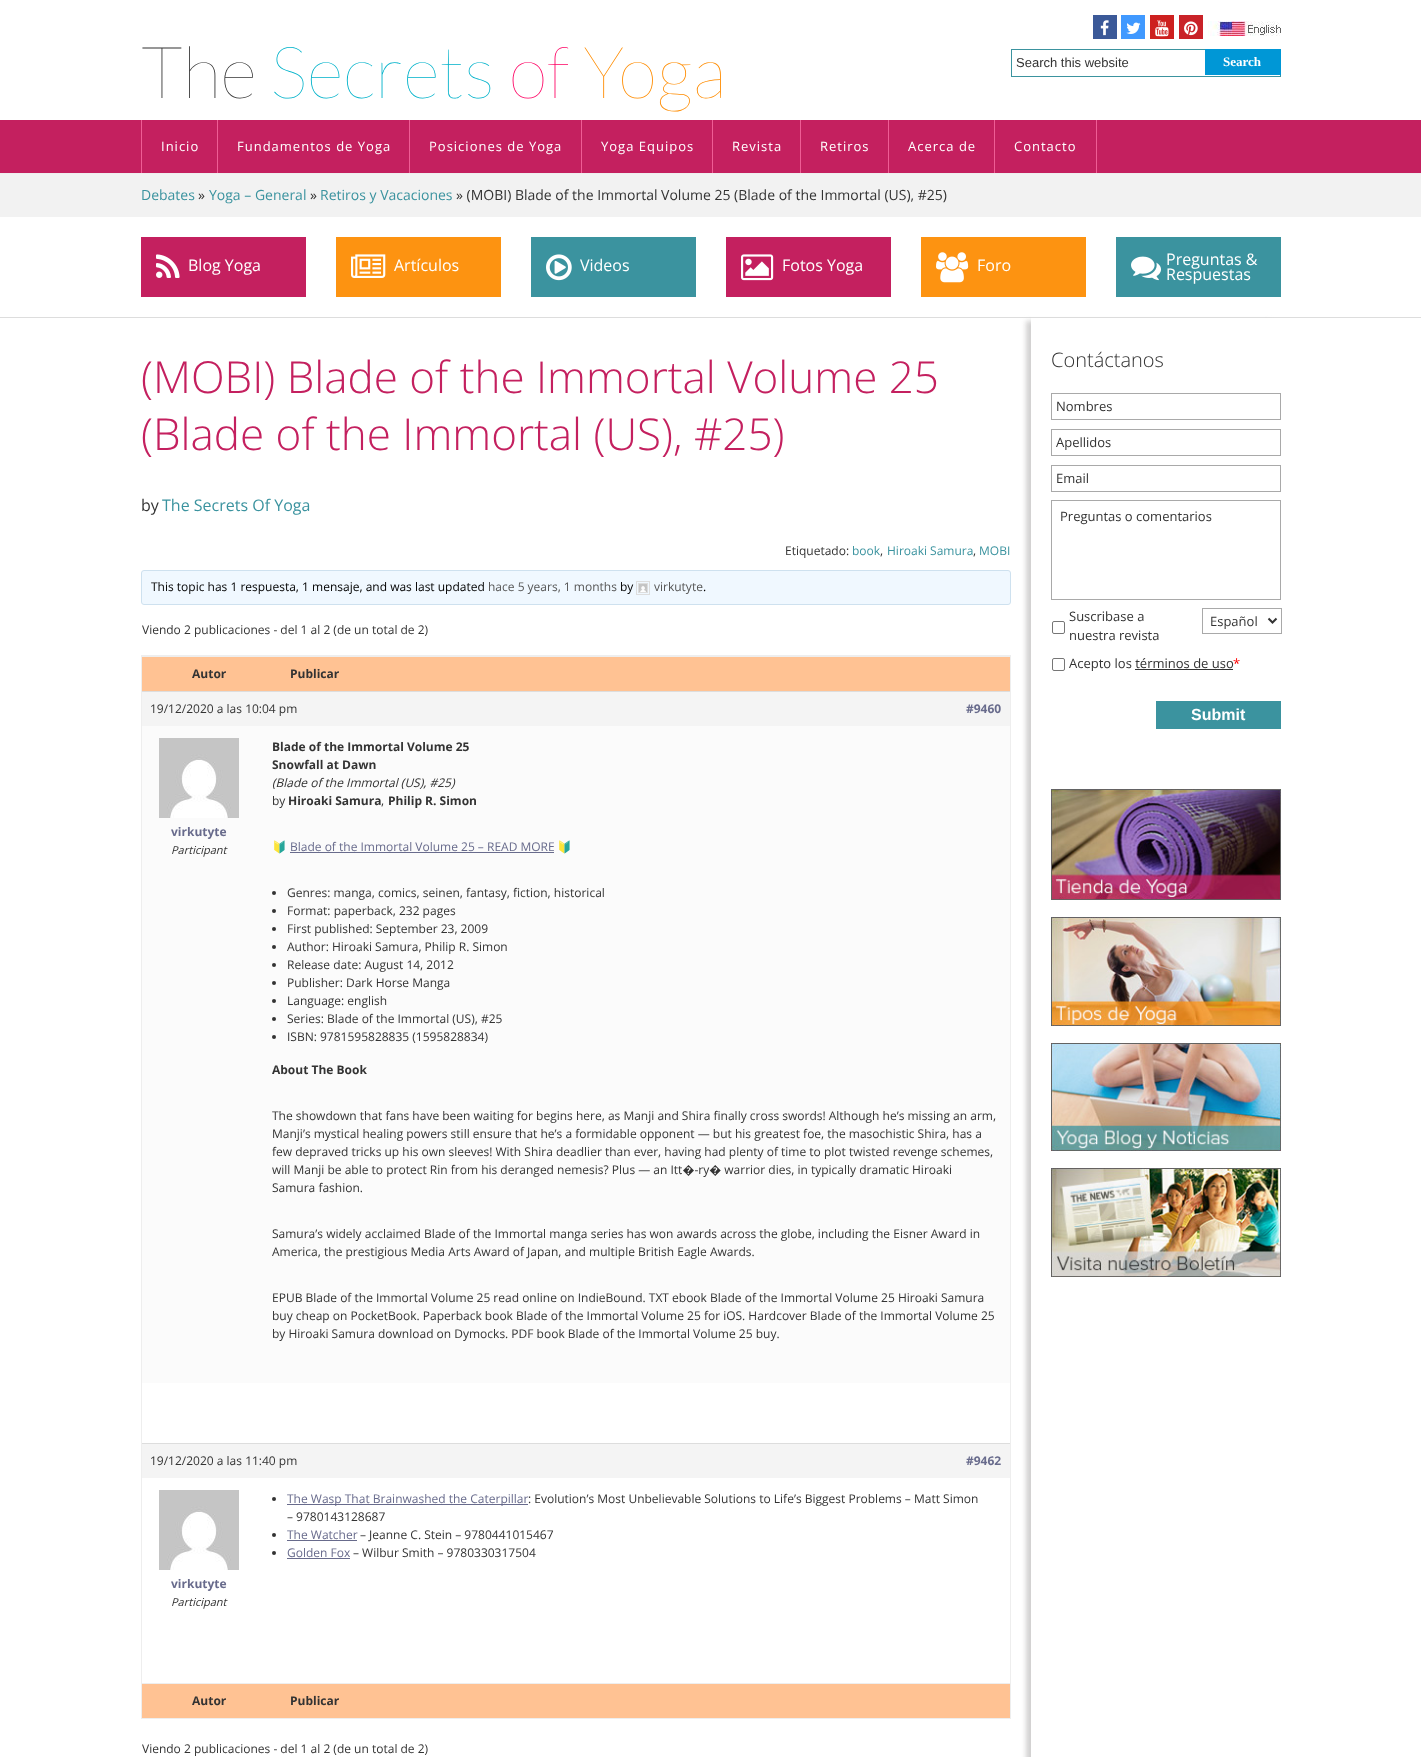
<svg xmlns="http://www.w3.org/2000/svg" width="1421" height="1757">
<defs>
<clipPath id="clip1"><path d="M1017 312h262v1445h-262zm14 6h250v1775h-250z" clip-rule="evenodd"/></clipPath>
</defs>
<rect width="100%" height="100%" fill="#fff"/>
<text x="141" y="98" style="font-family:Lato;font-size:72px;font-weight:100;fill:#333">The</text>
<text x="270" y="98" style="font-family:Lato;font-size:72px;font-weight:100;fill:#00b2ca">Secrets</text>
<text x="509" y="98" style="font-family:Lato;font-size:72px;font-weight:100;fill:#fe0062">of</text>
<text x="583" y="98" style="font-family:Lato;font-size:72px;font-weight:100;fill:#ff8c00">Yoga</text>
<rect x="1093" y="15" width="24" height="24" fill="#3b5998"/>
<image x="1100" y="20" width="9" height="16" href="media/1.png"/>
<rect x="1121" y="15" width="24" height="24" fill="#4099ff"/>
<image x="1126" y="22" width="15" height="12" href="media/2.png"/>
<rect x="1150" y="15" width="24" height="24" fill="#cd201f"/>
<image x="1155" y="20" width="14" height="17" href="media/3.png"/>
<rect x="1179" y="15" width="24" height="24" fill="#c92228"/>
<image x="1184" y="21" width="14" height="15" href="media/4.png"/>
<image x="1208" y="21" width="73" height="15" href="media/5.png"/>
<rect x="1011.5" y="49.5" width="269" height="27" fill="none" stroke="#3b939f"/>
<text x="1016" y="67" style="font-family:Liberation Sans;font-size:13px;fill:#333">Search this website</text>
<rect x="1205" y="49" width="76" height="26" fill="#0097d6"/>
<text x="1223" y="66" style="font-family:Liberation Serif;font-size:13px;font-weight:bold;fill:#fff">Search</text>
<rect y="120" width="1421" height="53" fill="#c4205f"/>
<rect y="173" width="1421" height="1" fill="#eee"/>
<rect x="141" y="120" width="1" height="53" fill="#ef5d95"/>
<text x="161" y="151" style="font-family:Open Sans;font-size:13px;letter-spacing:1px;fill:#fff">Inicio</text>
<rect x="217" y="120" width="1" height="53" fill="#ef5d95"/>
<text x="237" y="151" style="font-family:Open Sans;font-size:13px;letter-spacing:1px;fill:#fff">Fundamentos de Yoga</text>
<rect x="409" y="120" width="1" height="53" fill="#ef5d95"/>
<text x="429" y="151" style="font-family:Open Sans;font-size:13px;letter-spacing:1px;fill:#fff">Posiciones de Yoga</text>
<rect x="581" y="120" width="1" height="53" fill="#ef5d95"/>
<text x="601" y="151" style="font-family:Open Sans;font-size:13px;letter-spacing:1px;fill:#fff">Yoga Equipos</text>
<rect x="712" y="120" width="1" height="53" fill="#ef5d95"/>
<text x="732" y="151" style="font-family:Open Sans;font-size:13px;letter-spacing:1px;fill:#fff">Revista</text>
<rect x="800" y="120" width="1" height="53" fill="#ef5d95"/>
<text x="820" y="151" style="font-family:Open Sans;font-size:13px;letter-spacing:1px;fill:#fff">Retiros</text>
<rect x="888" y="120" width="1" height="53" fill="#ef5d95"/>
<text x="908" y="151" style="font-family:Open Sans;font-size:13px;letter-spacing:1px;fill:#fff">Acerca de</text>
<rect x="1096" y="120" width="1" height="53" fill="#ef5d95"/>
<rect x="994" y="120" width="1" height="53" fill="#ef5d95"/>
<text x="1014" y="151" style="font-family:Open Sans;font-size:13px;letter-spacing:1px;fill:#fff">Contacto</text>
<rect y="174" width="1421" height="43" fill="#f2f2f2"/>
<text x="141" y="200" style="font-family:Open Sans;font-size:14px;fill:#3b939f">Debates</text>
<text x="198" y="200" style="font-family:Open Sans;font-size:14px;fill:#333">»</text>
<text x="209" y="200" style="font-family:Open Sans;font-size:14px;fill:#3b939f">Yoga – General</text>
<text x="310" y="200" style="font-family:Open Sans;font-size:14px;fill:#333">»</text>
<text x="320" y="200" style="font-family:Open Sans;font-size:14px;fill:#3b939f">Retiros y Vacaciones</text>
<text x="456" y="200" style="font-family:Open Sans;font-size:14px;fill:#333">» (MOBI) Blade of the Immortal Volume 25 (Blade of the Immortal (US), #25)</text>
<rect y="317" width="1421" height="1" fill="#ddd"/>
<rect x="141" y="237" width="165" height="60" fill="#c4205f"/>
<image x="156" y="254" width="24" height="24" href="media/6.png"/>
<text x="188" y="271" style="font-family:Open Sans;font-size:16px;fill:#fff">Blog Yoga</text>
<rect x="336" y="237" width="165" height="60" fill="#fd9311"/>
<image x="351" y="254" width="35" height="24" href="media/7.png"/>
<text x="394" y="271" style="font-family:Open Sans;font-size:16px;fill:#fff">Artículos</text>
<rect x="531" y="237" width="165" height="60" fill="#3b939f"/>
<image x="546" y="254" width="26" height="27" href="media/8.png"/>
<text x="580" y="271" style="font-family:Open Sans;font-size:16px;fill:#fff">Videos</text>
<rect x="726" y="237" width="165" height="60" fill="#c4205f"/>
<image x="741" y="254" width="33" height="27" href="media/9.png"/>
<text x="782" y="271" style="font-family:Open Sans;font-size:16px;fill:#fff">Fotos Yoga</text>
<rect x="921" y="237" width="165" height="60" fill="#fd9311"/>
<image x="936" y="252" width="33" height="31" href="media/10.png"/>
<text x="977" y="271" style="font-family:Open Sans;font-size:16px;fill:#fff">Foro</text>
<rect x="1116" y="237" width="165" height="60" fill="#3b939f"/>
<image x="1131" y="256" width="30" height="25" href="media/11.png"/>
<text x="1166" y="265" style="font-family:Open Sans;font-size:16px;fill:#fff">Preguntas &amp;</text>
<text x="1166" y="280" style="font-family:Open Sans;font-size:16px;fill:#fff">Respuestas</text>
<text x="141" y="393" style="font-family:Open Sans;font-size:44px;font-weight:300;fill:#c4205f">(MOBI) Blade of the Immortal Volume 25</text>
<text x="141" y="450" style="font-family:Open Sans;font-size:44px;font-weight:300;fill:#c4205f">(Blade of the Immortal (US), #25)</text>
<text x="141" y="511" style="font-family:Open Sans;font-size:16px;fill:#333">by</text>
<text x="162" y="511" style="font-family:Open Sans;font-size:16px;fill:#3b939f">The Secrets Of Yoga</text>
<text x="785" y="555" style="font-family:Open Sans;font-size:12px;fill:#333">Etiquetado:</text>
<text x="852" y="555" style="font-family:Open Sans;font-size:12px;fill:#3b939f">book</text>
<text x="880" y="555" style="font-family:Open Sans;font-size:12px;fill:#333">,</text>
<text x="887" y="555" style="font-family:Open Sans;font-size:12px;fill:#3b939f">Hiroaki Samura</text>
<text x="973" y="555" style="font-family:Open Sans;font-size:12px;fill:#333">,</text>
<text x="979" y="555" style="font-family:Open Sans;font-size:12px;fill:#3b939f">MOBI</text>
<rect x="141.5" y="570.5" width="869" height="34" rx="2.5" fill="#f0f8ff" stroke="#cee1ef"/>
<text x="151" y="591" style="font-family:Open Sans;font-size:12px;fill:#000">This topic has 1 respuesta, 1 mensaje, and was last updated</text>
<text x="488" y="591" style="font-family:Open Sans;font-size:12px;fill:#555">hace 5 years, 1 months</text>
<text x="620" y="591" style="font-family:Open Sans;font-size:12px;fill:#000">by</text>
<rect x="636.5" y="581.5" width="13" height="13" fill="none" stroke="#ddd"/>
<rect x="638.5" y="583.5" width="9" height="9" fill="none" stroke="#ddd"/>
<image x="639" y="584" width="8" height="8" href="media/12.png"/>
<text x="654" y="591" style="font-family:Open Sans;font-size:12px;fill:#555">virkutyte</text>
<text x="703" y="591" style="font-family:Open Sans;font-size:12px;fill:#000">.</text>
<text x="142" y="634" style="font-family:Open Sans;font-size:12px;fill:#333">Viendo 2 publicaciones - del 1 al 2 (de un total de 2)</text>
<rect x="141.5" y="655.5" width="869" height="1063" fill="none" stroke="#eee"/>
<rect x="142" y="657" width="868" height="34" fill="#ffc293"/>
<rect x="142" y="656" width="868" height="1" fill="#eee"/>
<text x="192" y="678" style="font-family:Open Sans;font-size:12px;font-weight:bold;fill:#333">Autor</text>
<text x="290" y="678" style="font-family:Open Sans;font-size:12px;font-weight:bold;fill:#333">Publicar</text>
<rect x="142" y="692" width="868" height="34" fill="#f4f4f4"/>
<rect x="142" y="691" width="868" height="1" fill="#ddd"/>
<text x="150" y="713" style="font-family:Open Sans;font-size:12px;fill:#333">19/12/2020 a las 10:04 pm</text>
<text x="966" y="713" style="font-family:Open Sans;font-size:12px;font-weight:bold;fill:#686b8c">#9460</text>
<rect x="142" y="726" width="868" height="657" fill="#fbfbfb"/>
<image x="159" y="738" width="80" height="80" href="media/13.png"/>
<text x="171" y="836" style="font-family:Open Sans;font-size:12px;font-weight:bold;fill:#686b8c">virkutyte</text>
<text x="171" y="854" style="font-family:Open Sans;font-size:11px;font-style:italic;fill:#333">Participant</text>
<text x="272" y="751" style="font-family:Open Sans;font-size:12px;font-weight:bold;fill:#333">Blade of the Immortal Volume 25</text>
<text x="272" y="769" style="font-family:Open Sans;font-size:12px;font-weight:bold;fill:#333">Snowfall at Dawn</text>
<text x="272" y="787" style="font-family:Open Sans;font-size:12px;font-style:italic;fill:#333">(Blade of the Immortal (US), #25)</text>
<text x="272" y="805" style="font-family:Open Sans;font-size:12px;fill:#333">by</text>
<text x="288" y="805" style="font-family:Open Sans;font-size:12px;font-weight:bold;fill:#333">Hiroaki Samura</text>
<text x="381" y="805" style="font-family:Open Sans;font-size:12px;fill:#333">,</text>
<text x="388" y="805" style="font-family:Open Sans;font-size:12px;font-weight:bold;fill:#333">Philip R. Simon</text>
<text x="272" y="851" style="font-family:Noto Color Emoji;font-size:12px;fill:#333">🔰</text>
<text x="290" y="851" style="font-family:Open Sans;font-size:12px;fill:#686b8c">Blade of the Immortal Volume 25 – READ MORE</text>
<rect x="290" y="852" width="264" height="1" fill="#686b8c"/>
<text x="557" y="851" style="font-family:Noto Color Emoji;font-size:12px;fill:#333">🔰</text>
<circle cx="274" cy="893" r="2" fill="#333"/>
<text x="287" y="897" style="font-family:Open Sans;font-size:12px;fill:#333">Genres: manga, comics, seinen, fantasy, fiction, historical</text>
<circle cx="274" cy="911" r="2" fill="#333"/>
<text x="287" y="915" style="font-family:Open Sans;font-size:12px;fill:#333">Format: paperback, 232 pages</text>
<circle cx="274" cy="929" r="2" fill="#333"/>
<text x="287" y="933" style="font-family:Open Sans;font-size:12px;fill:#333">First published: September 23, 2009</text>
<circle cx="274" cy="947" r="2" fill="#333"/>
<text x="287" y="951" style="font-family:Open Sans;font-size:12px;fill:#333">Author: Hiroaki Samura, Philip R. Simon</text>
<circle cx="274" cy="965" r="2" fill="#333"/>
<text x="287" y="969" style="font-family:Open Sans;font-size:12px;fill:#333">Release date: August 14, 2012</text>
<circle cx="274" cy="983" r="2" fill="#333"/>
<text x="287" y="987" style="font-family:Open Sans;font-size:12px;fill:#333">Publisher: Dark Horse Manga</text>
<circle cx="274" cy="1001" r="2" fill="#333"/>
<text x="287" y="1005" style="font-family:Open Sans;font-size:12px;fill:#333">Language: english</text>
<circle cx="274" cy="1019" r="2" fill="#333"/>
<text x="287" y="1023" style="font-family:Open Sans;font-size:12px;fill:#333">Series: Blade of the Immortal (US), #25</text>
<circle cx="274" cy="1037" r="2" fill="#333"/>
<text x="287" y="1041" style="font-family:Open Sans;font-size:12px;fill:#333">ISBN: 9781595828835 (1595828834)</text>
<text x="272" y="1074" style="font-family:Open Sans;font-size:12px;font-weight:bold;fill:#333">About The Book</text>
<text x="272" y="1120" style="font-family:Open Sans;font-size:12px;fill:#333">The showdown that fans have been waiting for begins here, as Manji and Shira finally cross swords! Although he’s missing an arm,</text>
<text x="272" y="1138" style="font-family:Open Sans;font-size:12px;fill:#333">Manji’s mystical healing powers still ensure that he’s a formidable opponent — but his greatest foe, the masochistic Shira, has a</text>
<text x="272" y="1156" style="font-family:Open Sans;font-size:12px;fill:#333">few depraved tricks up his own sleeves! With Shira deadlier than ever, having had plenty of time to plot twisted revenge schemes,</text>
<text x="272" y="1174" style="font-family:Open Sans;font-size:12px;fill:#333">will Manji be able to protect Rin from his deranged nemesis? Plus — an Itt�-ry� warrior dies, in typically dramatic Hiroaki</text>
<text x="272" y="1192" style="font-family:Open Sans;font-size:12px;fill:#333">Samura fashion.</text>
<text x="272" y="1238" style="font-family:Open Sans;font-size:12px;fill:#333">Samura’s widely acclaimed Blade of the Immortal manga series has won awards across the globe, including the Eisner Award in</text>
<text x="272" y="1256" style="font-family:Open Sans;font-size:12px;fill:#333">America, the prestigious Media Arts Award of Japan, and multiple British Eagle Awards.</text>
<text x="272" y="1302" style="font-family:Open Sans;font-size:12px;fill:#333">EPUB Blade of the Immortal Volume 25 read online on IndieBound. TXT ebook Blade of the Immortal Volume 25 Hiroaki Samura</text>
<text x="272" y="1320" style="font-family:Open Sans;font-size:12px;fill:#333">buy cheap on PocketBook. Paperback book Blade of the Immortal Volume 25 for iOS. Hardcover Blade of the Immortal Volume 25</text>
<text x="272" y="1338" style="font-family:Open Sans;font-size:12px;fill:#333">by Hiroaki Samura download on Dymocks. PDF book Blade of the Immortal Volume 25 buy.</text>
<rect x="142" y="1444" width="868" height="34" fill="#f4f4f4"/>
<rect x="142" y="1443" width="868" height="1" fill="#ddd"/>
<text x="150" y="1465" style="font-family:Open Sans;font-size:12px;fill:#333">19/12/2020 a las 11:40 pm</text>
<text x="966" y="1465" style="font-family:Open Sans;font-size:12px;font-weight:bold;fill:#686b8c">#9462</text>
<circle cx="274" cy="1499" r="2" fill="#333"/>
<rect x="287" y="1504" width="241" height="1" fill="#686b8c"/>
<text x="287" y="1503" style="font-family:Open Sans;font-size:12px;fill:#686b8c">The Wasp That Brainwashed the Caterpillar</text>
<text x="528" y="1503" style="font-family:Open Sans;font-size:12px;fill:#333">: Evolution’s Most Unbelievable Solutions to Life’s Biggest Problems – Matt Simon</text>
<text x="287" y="1521" style="font-family:Open Sans;font-size:12px;fill:#333">– 9780143128687</text>
<circle cx="274" cy="1535" r="2" fill="#333"/>
<text x="287" y="1539" style="font-family:Open Sans;font-size:12px;fill:#686b8c">The Watcher</text>
<rect x="287" y="1540" width="70" height="1" fill="#686b8c"/>
<text x="360" y="1539" style="font-family:Open Sans;font-size:12px;fill:#333">– Jeanne C. Stein – 9780441015467</text>
<circle cx="274" cy="1553" r="2" fill="#333"/>
<text x="287" y="1557" style="font-family:Open Sans;font-size:12px;fill:#686b8c">Golden Fox</text>
<rect x="287" y="1558" width="63" height="1" fill="#686b8c"/>
<text x="353" y="1557" style="font-family:Open Sans;font-size:12px;fill:#333">– Wilbur Smith – 9780330317504</text>
<image x="159" y="1490" width="80" height="80" href="media/13.png"/>
<text x="171" y="1588" style="font-family:Open Sans;font-size:12px;font-weight:bold;fill:#686b8c">virkutyte</text>
<text x="171" y="1606" style="font-family:Open Sans;font-size:11px;font-style:italic;fill:#333">Participant</text>
<rect x="142" y="1684" width="868" height="34" fill="#ffc293"/>
<rect x="142" y="1683" width="868" height="1" fill="#eee"/>
<text x="192" y="1705" style="font-family:Open Sans;font-size:12px;font-weight:bold;fill:#333">Autor</text>
<text x="290" y="1705" style="font-family:Open Sans;font-size:12px;font-weight:bold;fill:#333">Publicar</text>
<text x="142" y="1753" style="font-family:Open Sans;font-size:12px;fill:#333">Viendo 2 publicaciones - del 1 al 2 (de un total de 2)</text>
<g clip-path="url(#clip1)">
<rect x="1026" y="321" width="244" height="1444" fill="#d2d1d1" filter="blur(2.5px)"/>
</g>
<text x="1051" y="367" style="font-family:Open Sans;font-size:20px;font-weight:300;fill:#333">Contáctanos</text>
<rect x="1051.5" y="393.5" width="229" height="26" fill="none" stroke="#a9a9a9"/>
<text x="1056" y="411" style="font-family:Open Sans;font-size:13px;fill:#333">Nombres</text>
<rect x="1051.5" y="429.5" width="229" height="26" fill="none" stroke="#a9a9a9"/>
<text x="1056" y="447" style="font-family:Open Sans;font-size:13px;fill:#333">Apellidos</text>
<rect x="1051.5" y="465.5" width="229" height="26" fill="none" stroke="#a9a9a9"/>
<text x="1056" y="483" style="font-family:Open Sans;font-size:13px;fill:#333">Email</text>
<rect x="1051.5" y="500.5" width="229" height="99" fill="none" stroke="#a9a9a9"/>
<text x="1060" y="521" style="font-family:Open Sans;font-size:13px;fill:#333">Preguntas o comentarios</text>
<rect x="1052.5" y="621.5" width="12" height="12" rx="1.5" fill="none" stroke="#767676"/>
<text x="1069" y="621" style="font-family:Open Sans;font-size:13px;fill:#333">Suscribase a</text>
<text x="1069" y="640" style="font-family:Open Sans;font-size:13px;fill:#333">nuestra revista</text>
<rect x="1202.5" y="608.5" width="79" height="25" fill="none" stroke="#a9a9a9"/>
<path d="M1268.5 618.5l4 4l4-4" fill="none" stroke="#333" stroke-width="2"/>
<text x="1210" y="626" style="font-family:Open Sans;font-size:13px;fill:#333">Español</text>
<rect x="1052.5" y="658.5" width="12" height="12" rx="1.5" fill="none" stroke="#767676"/>
<text x="1069" y="668" style="font-family:Open Sans;font-size:13px;fill:#333">Acepto los términos de uso</text>
<text x="1233" y="668" style="font-family:Open Sans;font-size:13px;fill:#f00">*</text>
<rect x="1135" y="669" width="98" height="1" fill="#333"/>
<rect x="1156" y="701" width="125" height="28" fill="#3b939f"/>
<text x="1191" y="720" style="font-family:Liberation Sans;font-size:16px;font-weight:bold;fill:#fff">Submit</text>
<image x="1051" y="789" width="230" height="111" href="media/14.png"/>
<image x="1051" y="917" width="230" height="109" href="media/15.png"/>
<image x="1051" y="1043" width="230" height="108" href="media/16.png"/>
<image x="1051" y="1168" width="230" height="109" href="media/17.png"/>
</svg>
